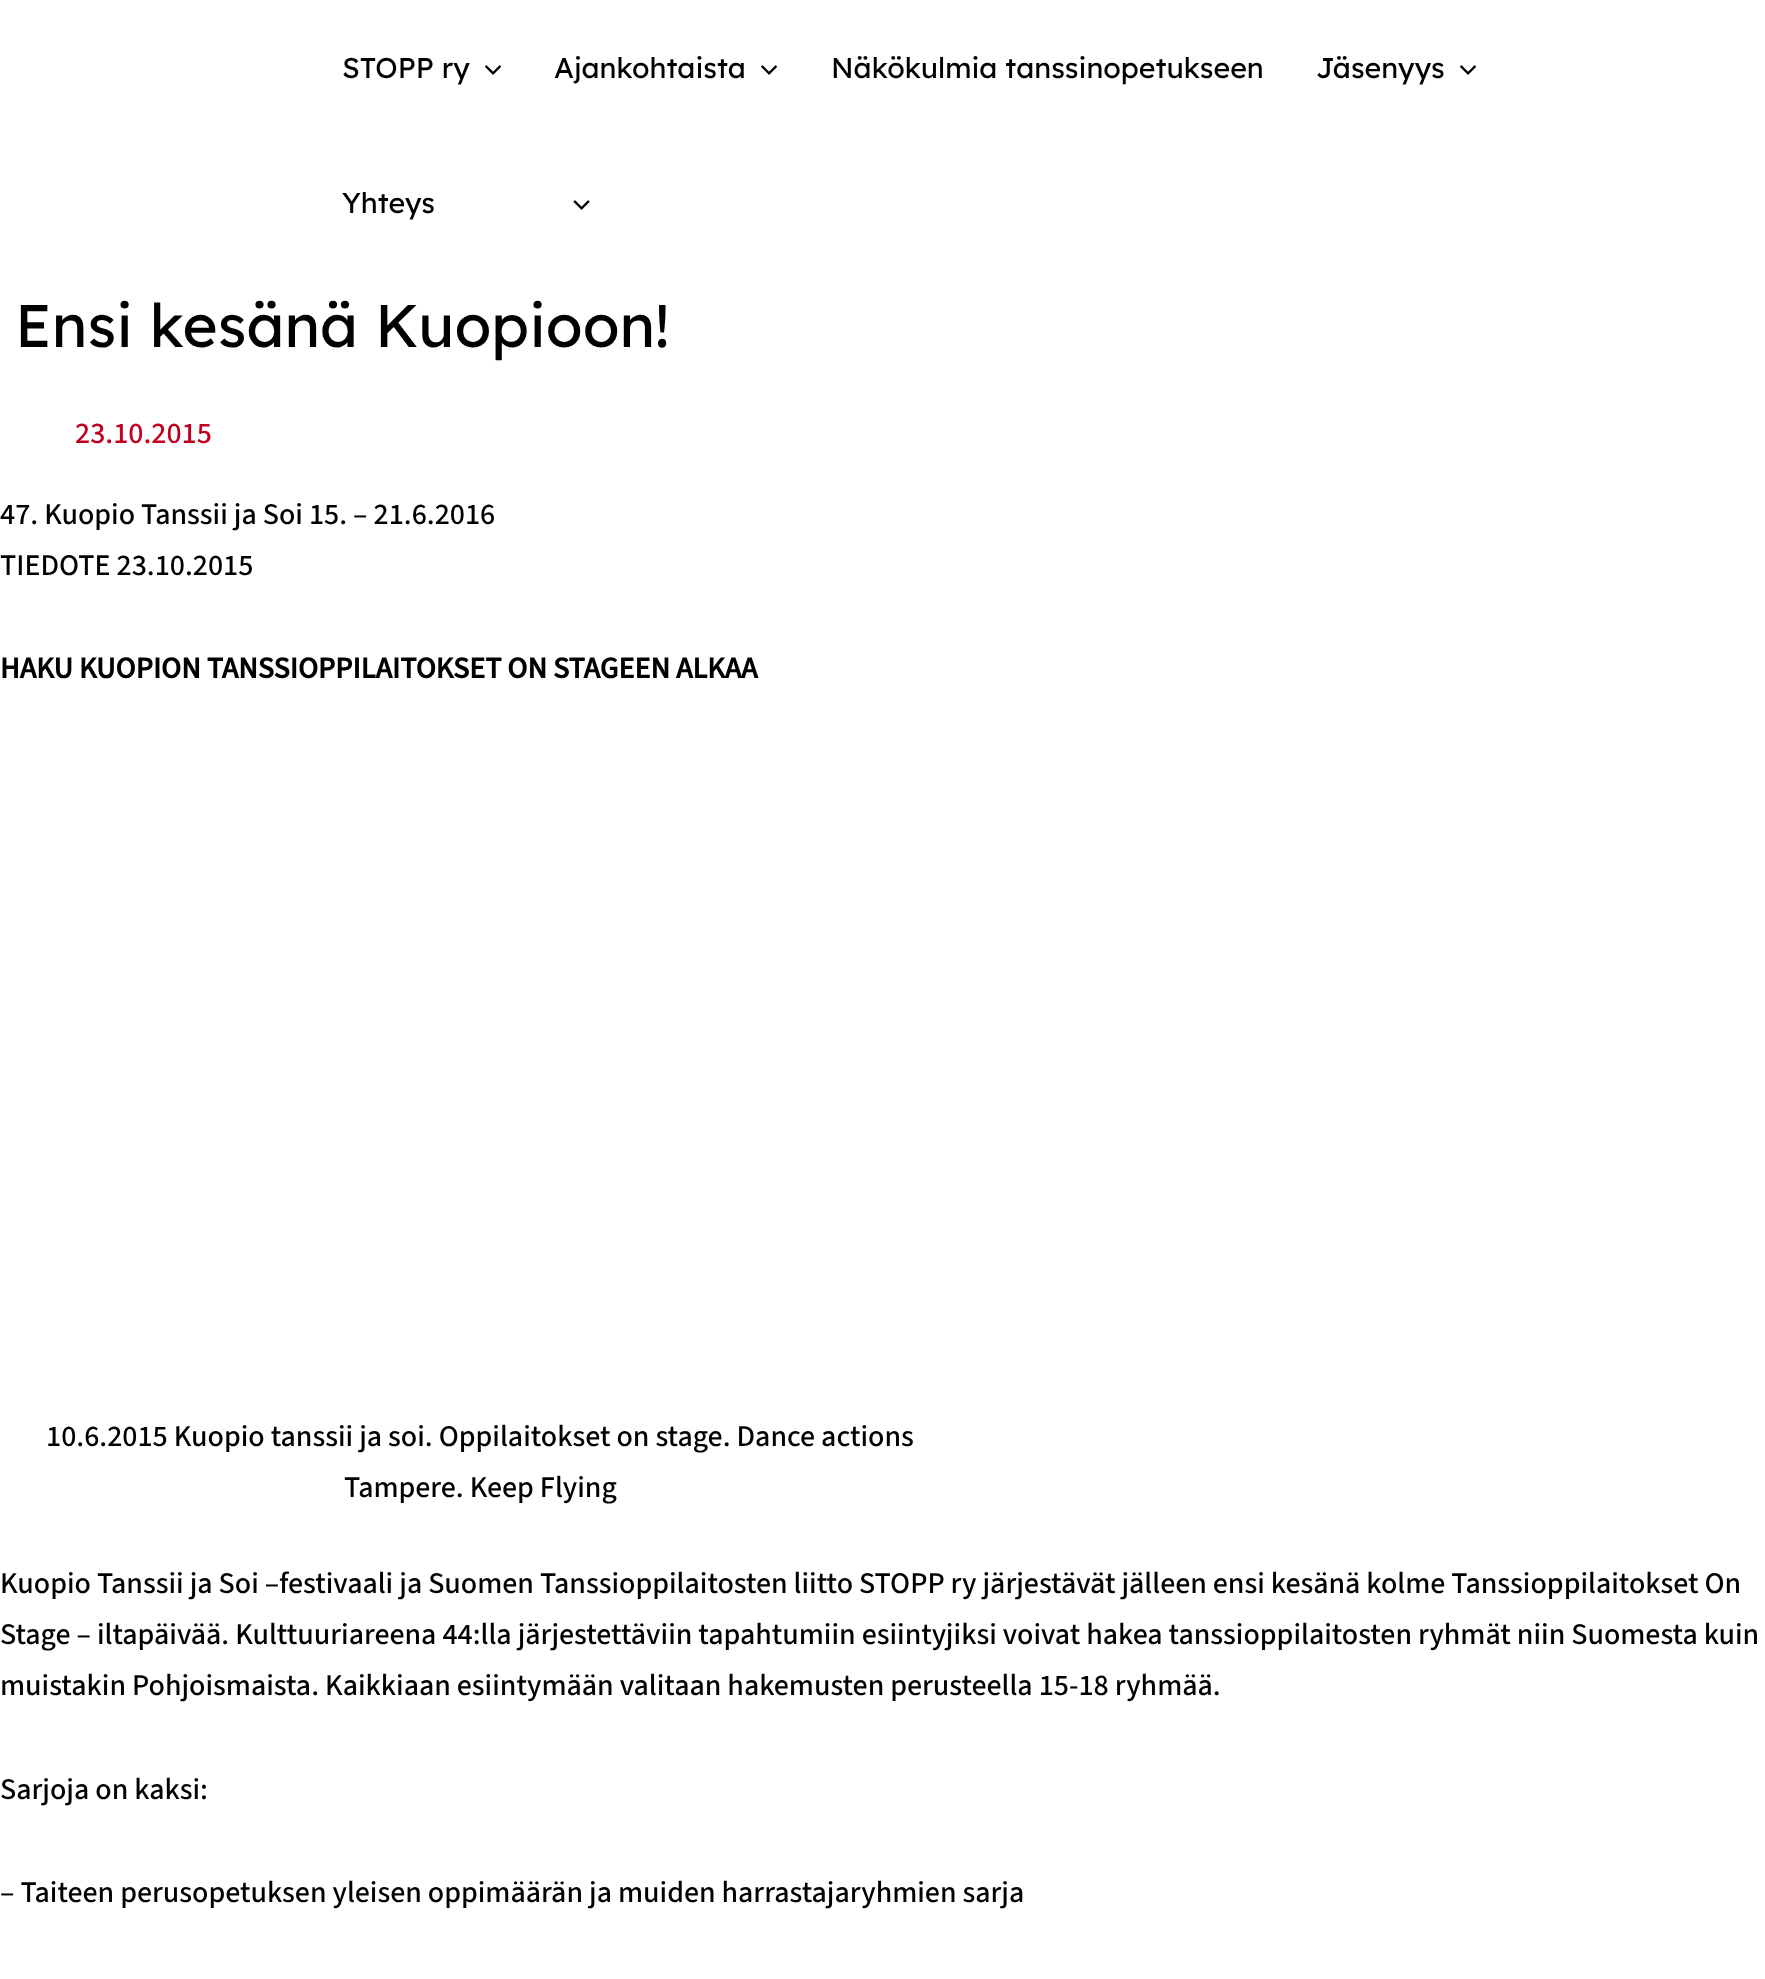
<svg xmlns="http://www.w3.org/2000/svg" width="1765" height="1979">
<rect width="100%" height="100%" fill="#fff"/>
<text x="342" y="78" style="font-family:Lexend;font-size:28.5px;fill:#000">STOPP ry</text>
<image x="485" y="65" width="16" height="10" href="media/1.png"/>
<text x="554" y="78" style="font-family:Lexend;font-size:28.5px;fill:#000">Ajankohtaista</text>
<image x="761" y="65" width="17" height="10" href="media/2.png"/>
<text x="831" y="78" style="font-family:Lexend;font-size:28.5px;fill:#000">Näkökulmia tanssinopetukseen</text>
<text x="1316" y="78" style="font-family:Lexend;font-size:28.5px;fill:#000">Jäsenyys</text>
<image x="1460" y="65" width="16" height="10" href="media/1.png"/>
<text x="342" y="213" style="font-family:Lexend;font-size:28.5px;fill:#000">Yhteys</text>
<image x="573" y="200" width="17" height="10" href="media/3.png"/>
<text x="15" y="347" style="font-family:Lexend;font-size:60px;fill:#000">Ensi kesänä Kuopioon!</text>
<text x="75" y="443" style="font-family:'Source Sans 3';font-size:30px;font-weight:200;fill:#c10020">23.10.2015</text>
<text x="0" y="524" style="font-family:'Source Sans 3';font-size:30px;font-weight:200;fill:#000">47. Kuopio Tanssii ja Soi 15. – 21.6.2016</text>
<text x="0" y="575" style="font-family:'Source Sans 3';font-size:30px;font-weight:200;fill:#000">TIEDOTE 23.10.2015</text>
<text x="0" y="678" style="font-family:'Source Sans 3';font-size:30px;font-weight:bold;fill:#000">HAKU KUOPION TANSSIOPPILAITOKSET ON STAGEEN ALKAA</text>
<text x="46" y="1446" style="font-family:'Source Sans 3';font-size:30px;font-weight:200;fill:#000">10.6.2015 Kuopio tanssii ja soi. Oppilaitokset on stage. Dance actions</text>
<text x="344" y="1497" style="font-family:'Source Sans 3';font-size:30px;font-weight:200;fill:#000">Tampere. Keep Flying</text>
<text x="0" y="1593" style="font-family:'Source Sans 3';font-size:30px;font-weight:200;fill:#000">Kuopio Tanssii ja Soi –festivaali ja Suomen Tanssioppilaitosten liitto STOPP ry järjestävät jälleen ensi kesänä kolme Tanssioppilaitokset On</text>
<text x="0" y="1644" style="font-family:'Source Sans 3';font-size:30px;font-weight:200;fill:#000">Stage – iltapäivää. Kulttuuriareena 44:lla järjestettäviin tapahtumiin esiintyjiksi voivat hakea tanssioppilaitosten ryhmät niin Suomesta kuin</text>
<text x="0" y="1695" style="font-family:'Source Sans 3';font-size:30px;font-weight:200;fill:#000">muistakin Pohjoismaista. Kaikkiaan esiintymään valitaan hakemusten perusteella 15-18 ryhmää.</text>
<text x="0" y="1799" style="font-family:'Source Sans 3';font-size:30px;font-weight:200;fill:#000">Sarjoja on kaksi:</text>
<text x="0" y="1902" style="font-family:'Source Sans 3';font-size:30px;font-weight:200;fill:#000">– Taiteen perusopetuksen yleisen oppimäärän ja muiden harrastajaryhmien sarja</text>
</svg>
